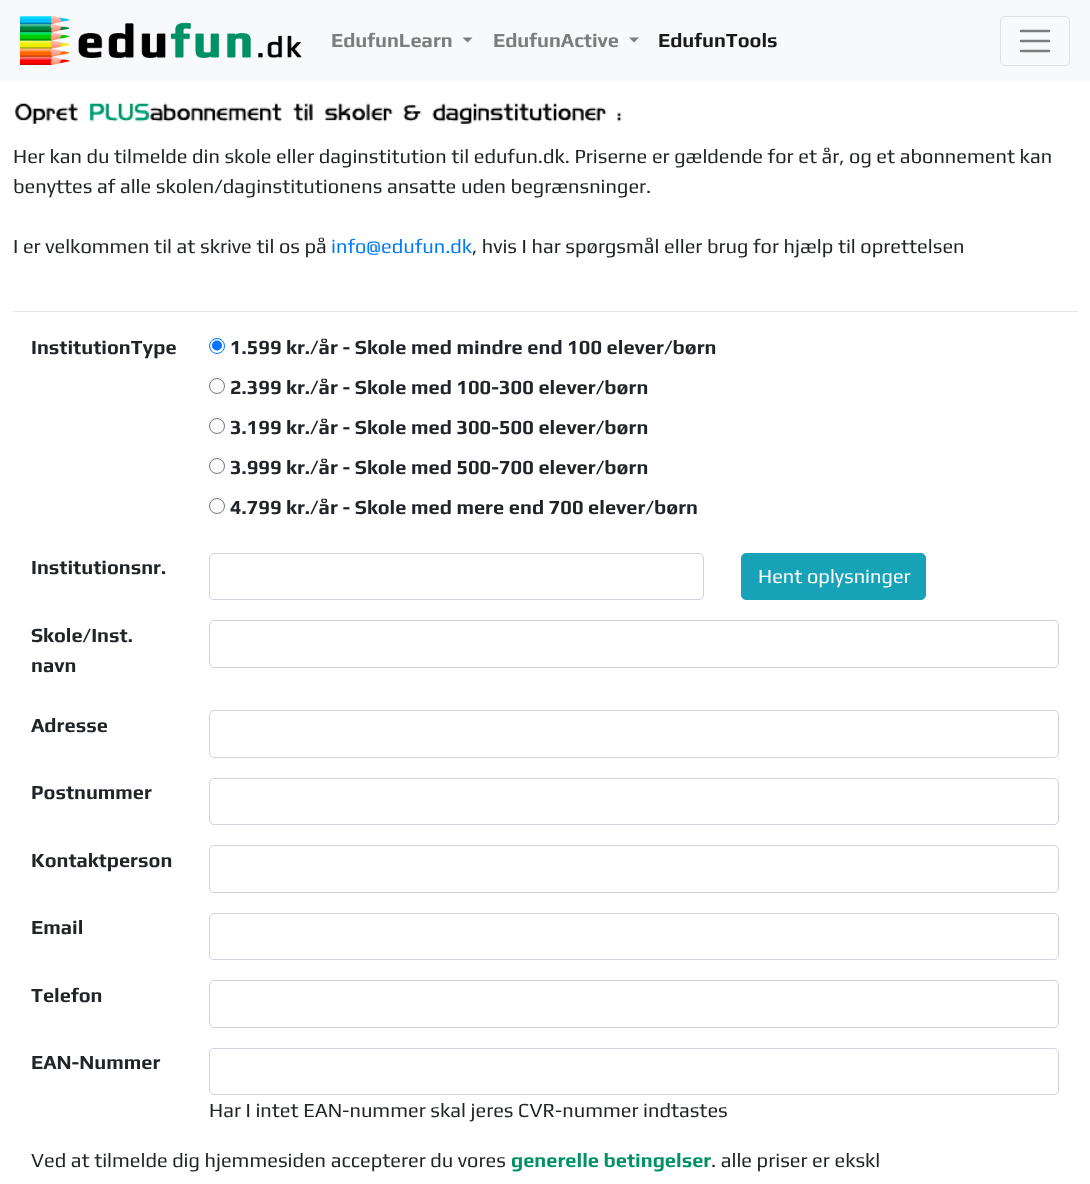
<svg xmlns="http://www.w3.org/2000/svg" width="1090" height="1184">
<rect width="100%" height="100%" fill="#fff"/>
<rect width="1090" height="81" fill="#f8f9fa"/>
<image x="20" y="16" width="282" height="49" href="media/1.png"/>
<text x="331" y="47" style="font-family:Play;font-size:20px;font-weight:bold;fill:#7c7d7d">EdufunLearn</text>
<path d="M462.5 37.5h10l-5 5z" fill="#7c7d7d"/>
<text x="493" y="47" style="font-family:Play;font-size:20px;font-weight:bold;fill:#7c7d7d">EdufunActive</text>
<path d="M629 37.5h10l-5 5z" fill="#7c7d7d"/>
<text x="658" y="47" style="font-family:Play;font-size:20px;font-weight:bold;fill:#191919">EdufunTools</text>
<rect x="1000.5" y="16.5" width="69" height="49" rx="4.5" fill="none" stroke="#dfe0e1"/>
<path d="M1021 31h28m-28 10h28m-28 10h28" fill="none" stroke="#7c7d7d" stroke-width="2.5" stroke-linecap="round"/>
<image x="14" y="103" width="608" height="21" href="media/2.png"/>
<text x="13" y="163" style="font-family:Play;font-size:20px;fill:#212529">Her kan du tilmelde din skole eller daginstitution til edufun.dk. Priserne er gældende for et år, og et abonnement kan</text>
<text x="13" y="193" style="font-family:Play;font-size:20px;fill:#212529">benyttes af alle skolen/daginstitutionens ansatte uden begrænsninger.</text>
<text x="13" y="253" style="font-family:Play;font-size:20px;fill:#212529">I er velkommen til at skrive til os på</text>
<text x="331" y="253" style="font-family:Play;font-size:20px;fill:#007bff">info@edufun.dk</text>
<text x="472" y="253" style="font-family:Play;font-size:20px;fill:#212529">, hvis I har spørgsmål eller brug for hjælp til oprettelsen</text>
<rect x="13" y="311" width="1065" height="1" fill="#e6e6e6"/>
<text x="31" y="354" style="font-family:Play;font-size:20px;font-weight:bold;fill:#212529">InstitutionType</text>
<circle cx="217" cy="346" r="7.5" fill="none" stroke="#0075ff"/>
<circle cx="217" cy="345.5" r="5" fill="#0075ff"/>
<text x="230" y="354" style="font-family:Play;font-size:20px;font-weight:bold;fill:#212529">1.599 kr./år - Skole med mindre end 100 elever/børn</text>
<circle cx="217" cy="386" r="7.5" fill="none" stroke="#767676"/>
<text x="230" y="394" style="font-family:Play;font-size:20px;font-weight:bold;fill:#212529">2.399 kr./år - Skole med 100-300 elever/børn</text>
<circle cx="217" cy="426" r="7.5" fill="none" stroke="#767676"/>
<text x="230" y="434" style="font-family:Play;font-size:20px;font-weight:bold;fill:#212529">3.199 kr./år - Skole med 300-500 elever/børn</text>
<circle cx="217" cy="466" r="7.5" fill="none" stroke="#767676"/>
<text x="230" y="474" style="font-family:Play;font-size:20px;font-weight:bold;fill:#212529">3.999 kr./år - Skole med 500-700 elever/børn</text>
<circle cx="217" cy="506" r="7.5" fill="none" stroke="#767676"/>
<text x="230" y="514" style="font-family:Play;font-size:20px;font-weight:bold;fill:#212529">4.799 kr./år - Skole med mere end 700 elever/børn</text>
<text x="31" y="574" style="font-family:Play;font-size:20px;font-weight:bold;fill:#212529">Institutionsnr.</text>
<rect x="209.5" y="553.5" width="494" height="46" rx="4.5" fill="none" stroke="#ced4da"/>
<rect x="741.5" y="553.5" width="184" height="46" rx="4.5" fill="#17a2b8" stroke="#17a2b8"/>
<text x="758" y="583" style="font-family:Play;font-size:20px;fill:#fff">Hent oplysninger</text>
<text x="31" y="642" style="font-family:Play;font-size:20px;font-weight:bold;fill:#212529">Skole/Inst.</text>
<text x="31" y="672" style="font-family:Play;font-size:20px;font-weight:bold;fill:#212529">navn</text>
<rect x="209.5" y="620.5" width="849" height="47" rx="4.5" fill="none" stroke="#ced4da"/>
<text x="31" y="732" style="font-family:Play;font-size:20px;font-weight:bold;fill:#212529">Adresse</text>
<rect x="209.5" y="710.5" width="849" height="47" rx="4.5" fill="none" stroke="#ced4da"/>
<text x="31" y="799" style="font-family:Play;font-size:20px;font-weight:bold;fill:#212529">Postnummer</text>
<rect x="209.5" y="778.5" width="849" height="46" rx="4.5" fill="none" stroke="#ced4da"/>
<text x="31" y="867" style="font-family:Play;font-size:20px;font-weight:bold;fill:#212529">Kontaktperson</text>
<rect x="209.5" y="845.5" width="849" height="47" rx="4.5" fill="none" stroke="#ced4da"/>
<text x="31" y="934" style="font-family:Play;font-size:20px;font-weight:bold;fill:#212529">Email</text>
<rect x="209.5" y="913.5" width="849" height="46" rx="4.5" fill="none" stroke="#ced4da"/>
<text x="31" y="1002" style="font-family:Play;font-size:20px;font-weight:bold;fill:#212529">Telefon</text>
<rect x="209.5" y="980.5" width="849" height="47" rx="4.5" fill="none" stroke="#ced4da"/>
<text x="31" y="1069" style="font-family:Play;font-size:20px;font-weight:bold;fill:#212529">EAN-Nummer</text>
<rect x="209.5" y="1048.5" width="849" height="46" rx="4.5" fill="none" stroke="#ced4da"/>
<text x="209" y="1117" style="font-family:Play;font-size:20px;fill:#212529">Har I intet EAN-nummer skal jeres CVR-nummer indtastes</text>
<text x="31" y="1167" style="font-family:Play;font-size:20px;fill:#212529">Ved at tilmelde dig hjemmesiden accepterer du vores</text>
<text x="511" y="1167" style="font-family:Play;font-size:20px;font-weight:bold;fill:#009165">generelle betingelser</text>
<text x="711" y="1167" style="font-family:Play;font-size:20px;fill:#212529">. alle priser er ekskl</text>
</svg>
